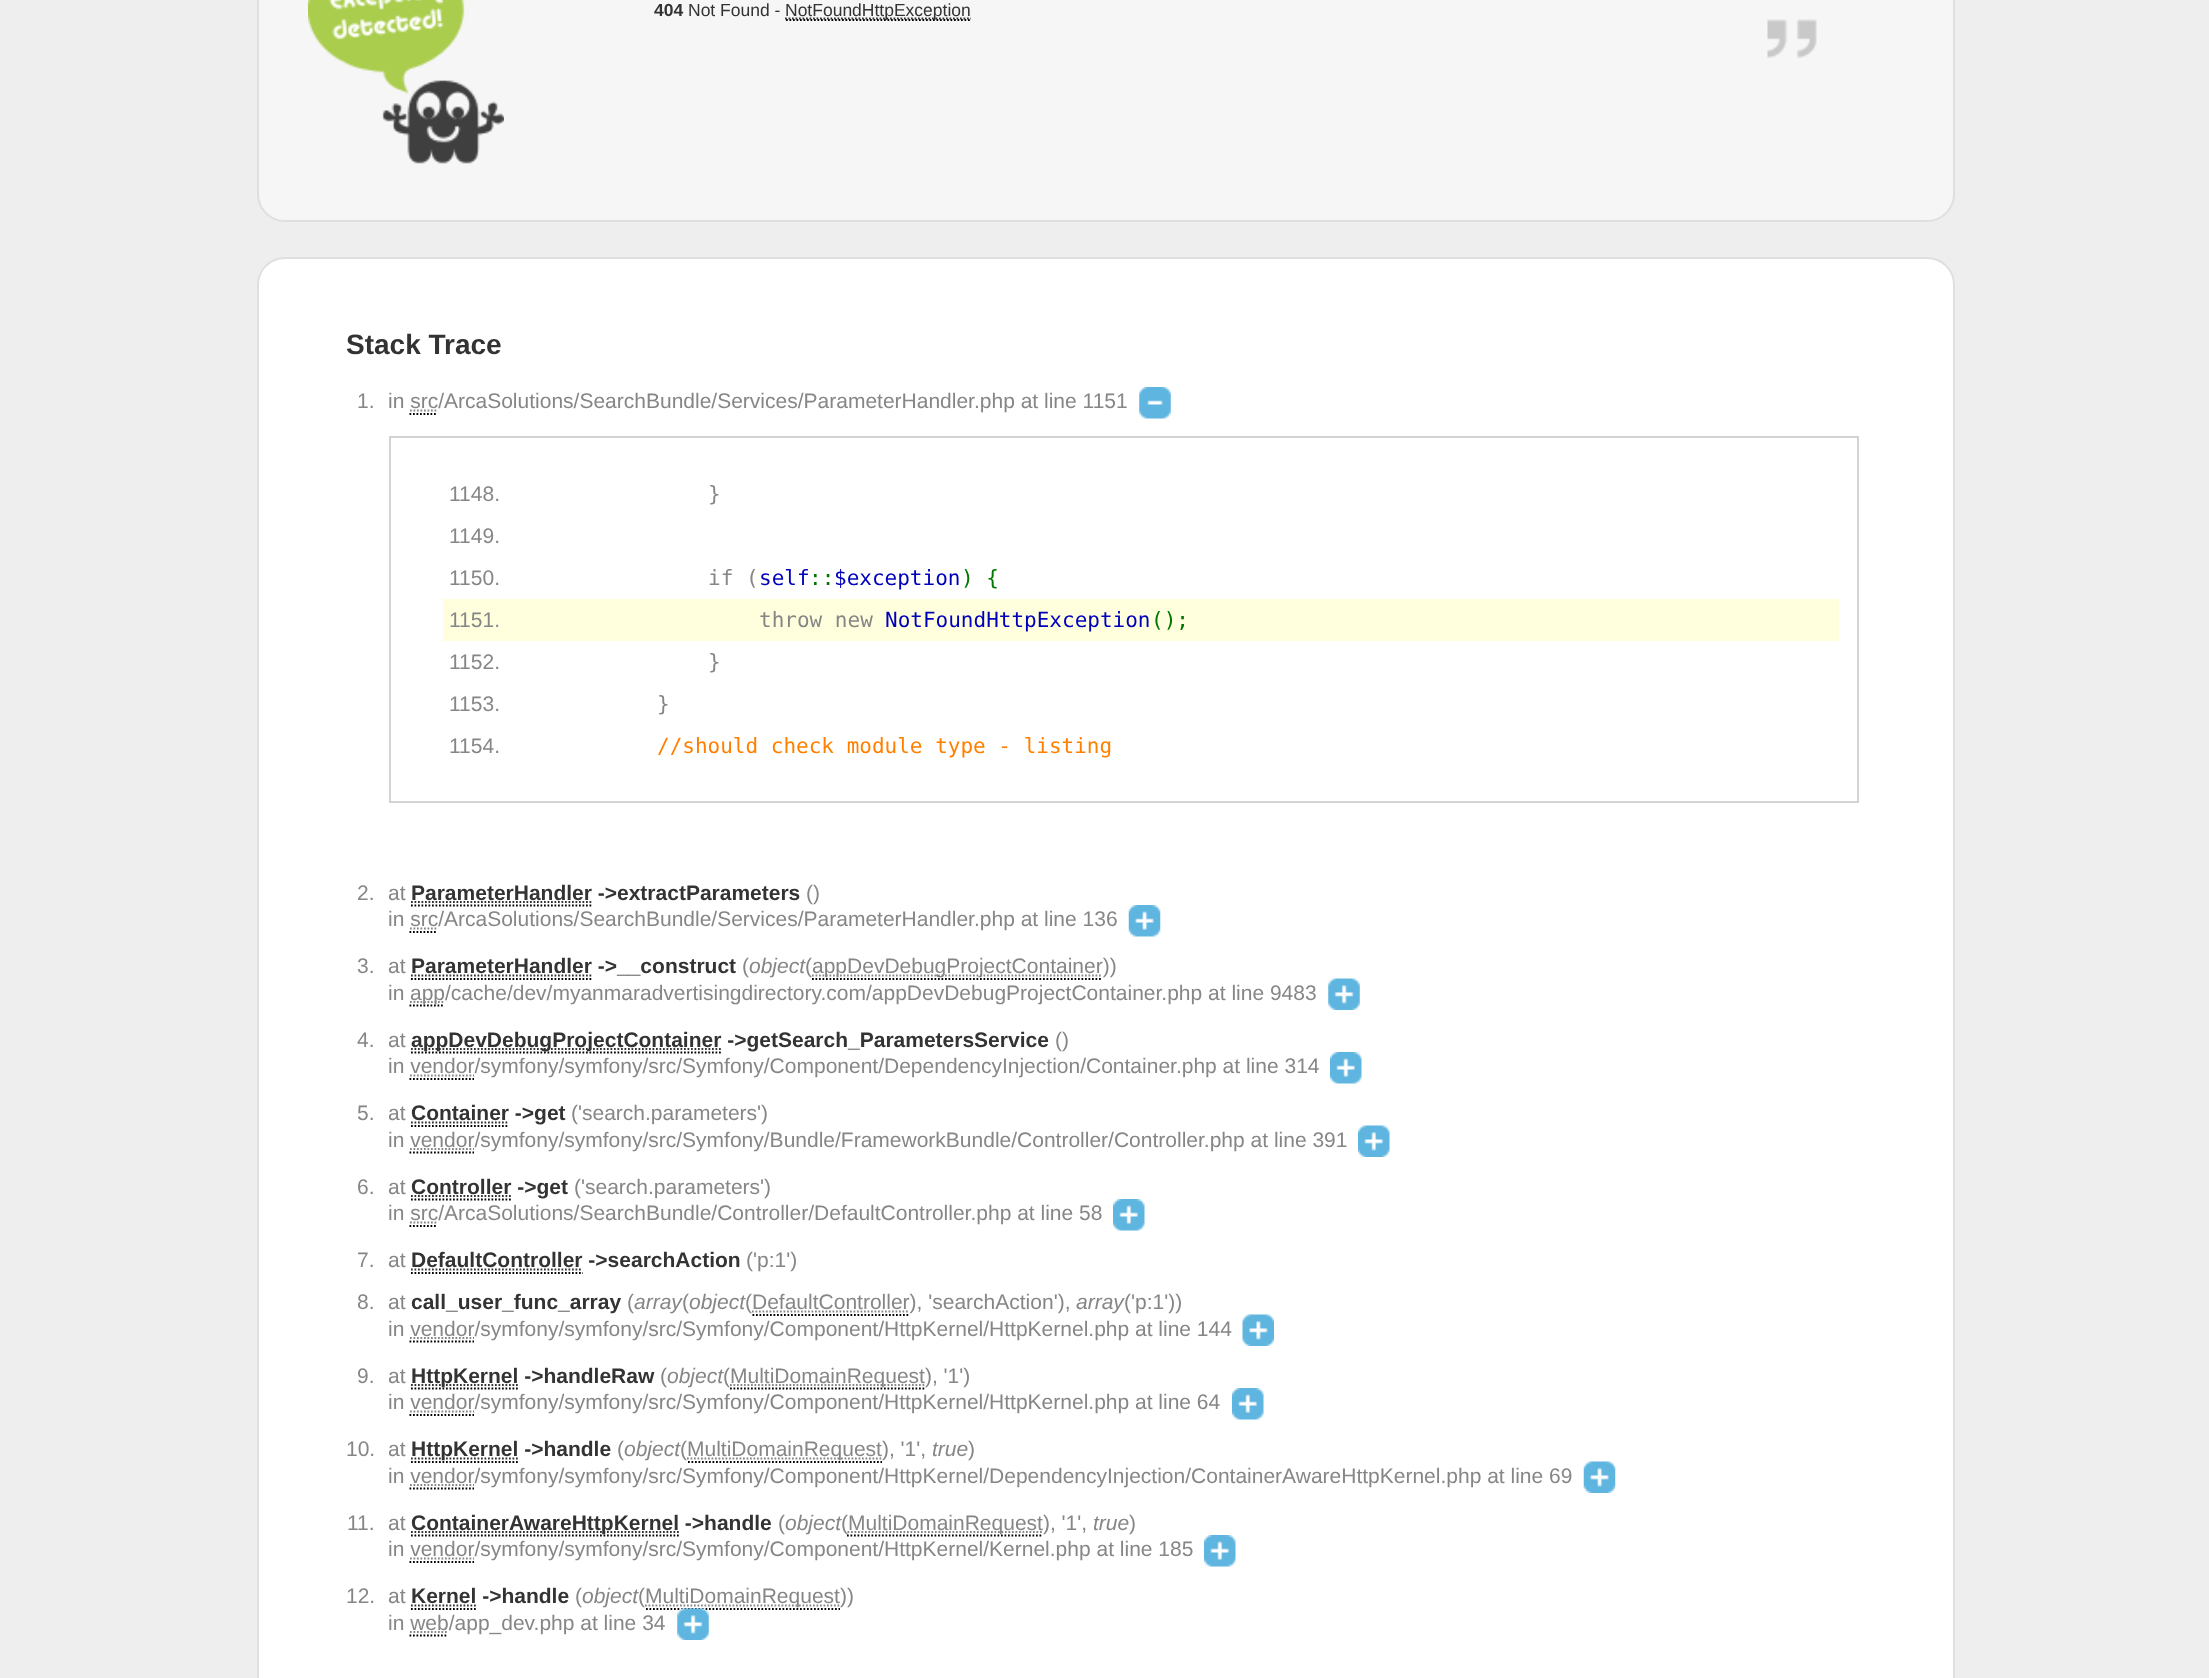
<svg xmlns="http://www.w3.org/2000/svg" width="2209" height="1678">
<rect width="100%" height="100%" fill="#eee"/>
<rect x="258" y="-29" width="1696" height="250" rx="27" fill="#f6f6f6" stroke="#dfdfdf" stroke-width="2"/>
<image x="308" y="0" width="196" height="164" href="media/1.png"/>
<text x="654" y="16" style="font-family:Liberation Sans;font-size:17.5px;font-weight:bold;fill:#333">404</text>
<text x="688" y="16" style="font-family:Liberation Sans;font-size:17.5px;fill:#333">Not Found -</text>
<path d="M786 20h185" fill="none" stroke="#000" stroke-width="1.8" stroke-dasharray="1.75 1.75"/>
<path d="M785 18.5h186" fill="none" stroke="#313131" stroke-width="1.8" stroke-dasharray="1.75 1.75"/>
<text x="785" y="16" style="font-family:Liberation Sans;font-size:17.5px;fill:#333">NotFoundHttpException</text>
<image x="1767" y="19" width="50" height="39" href="media/2.png"/>
<rect x="258" y="258" width="1696" height="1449" rx="27" fill="#fff" stroke="#dfdfdf" stroke-width="2"/>
<text x="346" y="354" style="font-family:Liberation Sans;font-size:28px;font-weight:bold;fill:#333">Stack Trace</text>
<text x="357" y="408" style="font-family:Liberation Sans;font-size:21px;fill:#868686">1.</text>
<text x="388" y="408" style="font-family:Liberation Sans;font-size:21px;fill:#868686">in src/ArcaSolutions/SearchBundle/Services/ParameterHandler.php at line 1151</text>
<image x="1139" y="387" width="32" height="32" href="media/3.png"/>
<path d="M410 410.5h28" fill="none" stroke="#868686" stroke-width="1.8" stroke-dasharray="1.75 1.75"/>
<path d="M409.5 414h28" fill="none" stroke="#000" stroke-width="1.8" stroke-dasharray="1.75 1.75"/>
<rect x="390" y="437" width="1468" height="365" fill="none" stroke="#d3d3d3" stroke-width="2"/>
<text x="449" y="501" style="font-family:Liberation Sans;font-size:21px;fill:#868686">1148.</text>
<text x="708" y="501" style="font-family:DejaVu Sans Mono;font-size:21px;fill:#868686">}</text>
<text x="449" y="543" style="font-family:Liberation Sans;font-size:21px;fill:#868686">1149.</text>
<text x="449" y="585" style="font-family:Liberation Sans;font-size:21px;fill:#868686">1150.</text>
<text x="708" y="585" style="font-family:DejaVu Sans Mono;font-size:21px;fill:#868686">if (</text>
<text x="759" y="585" style="font-family:DejaVu Sans Mono;font-size:21px;fill:#00b">self</text>
<text x="809" y="585" style="font-family:DejaVu Sans Mono;font-size:21px;fill:#070">::</text>
<text x="834" y="585" style="font-family:DejaVu Sans Mono;font-size:21px;fill:#00b">$exception</text>
<text x="961" y="585" style="font-family:DejaVu Sans Mono;font-size:21px;fill:#070">) {</text>
<rect x="443" y="599" width="1396" height="42" fill="#ffd"/>
<text x="449" y="627" style="font-family:Liberation Sans;font-size:21px;fill:#868686">1151.</text>
<text x="759" y="627" style="font-family:DejaVu Sans Mono;font-size:21px;fill:#868686">throw new</text>
<text x="885" y="627" style="font-family:DejaVu Sans Mono;font-size:21px;fill:#00b">NotFoundHttpException</text>
<text x="1151" y="627" style="font-family:DejaVu Sans Mono;font-size:21px;fill:#070">();</text>
<text x="449" y="669" style="font-family:Liberation Sans;font-size:21px;fill:#868686">1152.</text>
<text x="708" y="669" style="font-family:DejaVu Sans Mono;font-size:21px;fill:#868686">}</text>
<text x="449" y="711" style="font-family:Liberation Sans;font-size:21px;fill:#868686">1153.</text>
<text x="657" y="711" style="font-family:DejaVu Sans Mono;font-size:21px;fill:#868686">}</text>
<text x="449" y="753" style="font-family:Liberation Sans;font-size:21px;fill:#868686">1154.</text>
<text x="657" y="753" style="font-family:DejaVu Sans Mono;font-size:21px;fill:#ff8000">//should check module type - listing</text>
<text x="357" y="900" style="font-family:Liberation Sans;font-size:21px;fill:#868686">2.</text>
<text x="388" y="900" style="font-family:Liberation Sans;font-size:21px;fill:#868686">at</text>
<text x="411" y="900" style="font-family:Liberation Sans;font-size:21px;font-weight:bold;fill:#333">ParameterHandler -&gt;extractParameters</text>
<path d="M411 905.5h180.5" fill="none" stroke="#000" stroke-width="1.8" stroke-dasharray="1.75 1.75"/>
<path d="M411 902h181" fill="none" stroke="#313131" stroke-width="1.8" stroke-dasharray="1.75 1.75"/>
<text x="806" y="900" style="font-family:Liberation Sans;font-size:21px;fill:#868686">()</text>
<text x="388" y="926" style="font-family:Liberation Sans;font-size:21px;fill:#868686">in src/ArcaSolutions/SearchBundle/Services/ParameterHandler.php at line 136</text>
<image x="1128" y="905" width="33" height="32" href="media/4.png"/>
<path d="M410 928.5h28" fill="none" stroke="#868686" stroke-width="1.8" stroke-dasharray="1.75 1.75"/>
<path d="M409.5 932h28" fill="none" stroke="#000" stroke-width="1.8" stroke-dasharray="1.75 1.75"/>
<text x="357" y="973" style="font-family:Liberation Sans;font-size:21px;fill:#868686">3.</text>
<text x="388" y="973" style="font-family:Liberation Sans;font-size:21px;fill:#868686">at</text>
<path d="M411 975.5h181" fill="none" stroke="#313131" stroke-width="1.8" stroke-dasharray="1.75 1.75"/>
<text x="411" y="973" style="font-family:Liberation Sans;font-size:21px;font-weight:bold;fill:#333">ParameterHandler -&gt;__construct</text>
<path d="M411 979h180.5" fill="none" stroke="#000" stroke-width="1.8" stroke-dasharray="1.75 1.75"/>
<text x="742" y="973" style="font-family:Liberation Sans;font-size:21px;fill:#868686">(</text>
<text x="749" y="973" style="font-family:Liberation Sans;font-size:21px;font-style:italic;fill:#868686">object</text>
<text x="805" y="973" style="font-family:Liberation Sans;font-size:21px;fill:#868686">(</text>
<path d="M812 975.5h290.5" fill="none" stroke="#868686" stroke-width="1.8" stroke-dasharray="1.75 1.75"/>
<text x="812" y="973" style="font-family:Liberation Sans;font-size:21px;fill:#868686">appDevDebugProjectContainer))</text>
<path d="M812 979h290.5" fill="none" stroke="#000" stroke-width="1.8" stroke-dasharray="1.75 1.75"/>
<text x="388" y="1000" style="font-family:Liberation Sans;font-size:21px;fill:#868686">in</text>
<path d="M409.5 1005.5h35" fill="none" stroke="#000" stroke-width="1.8" stroke-dasharray="1.75 1.75"/>
<path d="M410 1002h35" fill="none" stroke="#868686" stroke-width="1.8" stroke-dasharray="1.75 1.75"/>
<text x="410" y="1000" style="font-family:Liberation Sans;font-size:21px;fill:#868686">app/cache/dev/myanmaradvertisingdirectory.com/appDevDebugProjectContainer.php at line 9483</text>
<image x="1328" y="978" width="32" height="32" href="media/5.png"/>
<text x="357" y="1047" style="font-family:Liberation Sans;font-size:21px;fill:#868686">4.</text>
<text x="388" y="1047" style="font-family:Liberation Sans;font-size:21px;fill:#868686">at</text>
<path d="M411 1052.5h310" fill="none" stroke="#000" stroke-width="1.8" stroke-dasharray="1.75 1.75"/>
<path d="M411 1049h310.5" fill="none" stroke="#313131" stroke-width="1.8" stroke-dasharray="1.75 1.75"/>
<text x="411" y="1047" style="font-family:Liberation Sans;font-size:21px;font-weight:bold;fill:#333">appDevDebugProjectContainer -&gt;getSearch_ParametersService</text>
<text x="1055" y="1047" style="font-family:Liberation Sans;font-size:21px;fill:#868686">()</text>
<text x="388" y="1073" style="font-family:Liberation Sans;font-size:21px;fill:#868686">in vendor/symfony/symfony/src/Symfony/Component/DependencyInjection/Container.php at line 314</text>
<image x="1330" y="1052" width="32" height="32" href="media/6.png"/>
<path d="M410 1075.5h64" fill="none" stroke="#868686" stroke-width="1.8" stroke-dasharray="1.75 1.75"/>
<path d="M409.5 1079h64.5" fill="none" stroke="#000" stroke-width="1.8" stroke-dasharray="1.75 1.75"/>
<text x="357" y="1120" style="font-family:Liberation Sans;font-size:21px;fill:#868686">5.</text>
<text x="388" y="1120" style="font-family:Liberation Sans;font-size:21px;fill:#868686">at</text>
<path d="M411 1122.5h98" fill="none" stroke="#313131" stroke-width="1.8" stroke-dasharray="1.75 1.75"/>
<text x="411" y="1120" style="font-family:Liberation Sans;font-size:21px;font-weight:bold;fill:#333">Container -&gt;get</text>
<path d="M411 1126h98" fill="none" stroke="#000" stroke-width="1.8" stroke-dasharray="1.75 1.75"/>
<text x="571" y="1120" style="font-family:Liberation Sans;font-size:21px;fill:#868686">('search.parameters')</text>
<text x="388" y="1147" style="font-family:Liberation Sans;font-size:21px;fill:#868686">in vendor/symfony/symfony/src/Symfony/Bundle/FrameworkBundle/Controller/Controller.php at line 391</text>
<image x="1358" y="1125" width="32" height="32" href="media/7.png"/>
<path d="M410 1149h64" fill="none" stroke="#868686" stroke-width="1.8" stroke-dasharray="1.75 1.75"/>
<path d="M409.5 1152.5h64.5" fill="none" stroke="#000" stroke-width="1.8" stroke-dasharray="1.75 1.75"/>
<text x="357" y="1194" style="font-family:Liberation Sans;font-size:21px;fill:#868686">6.</text>
<text x="388" y="1194" style="font-family:Liberation Sans;font-size:21px;fill:#868686">at</text>
<path d="M411 1199.5h100" fill="none" stroke="#000" stroke-width="1.8" stroke-dasharray="1.75 1.75"/>
<path d="M411 1196h100.5" fill="none" stroke="#313131" stroke-width="1.8" stroke-dasharray="1.75 1.75"/>
<text x="411" y="1194" style="font-family:Liberation Sans;font-size:21px;font-weight:bold;fill:#333">Controller -&gt;get</text>
<text x="574" y="1194" style="font-family:Liberation Sans;font-size:21px;fill:#868686">('search.parameters')</text>
<text x="388" y="1220" style="font-family:Liberation Sans;font-size:21px;fill:#868686">in src/ArcaSolutions/SearchBundle/Controller/DefaultController.php at line 58</text>
<image x="1113" y="1199" width="32" height="32" href="media/6.png"/>
<path d="M410 1222.5h28" fill="none" stroke="#868686" stroke-width="1.8" stroke-dasharray="1.75 1.75"/>
<path d="M409.5 1226h28" fill="none" stroke="#000" stroke-width="1.8" stroke-dasharray="1.75 1.75"/>
<text x="357" y="1267" style="font-family:Liberation Sans;font-size:21px;fill:#868686">7.</text>
<text x="388" y="1267" style="font-family:Liberation Sans;font-size:21px;fill:#868686">at</text>
<text x="411" y="1267" style="font-family:Liberation Sans;font-size:21px;font-weight:bold;fill:#333">DefaultController -&gt;searchAction</text>
<path d="M411 1273h172" fill="none" stroke="#000" stroke-width="1.8" stroke-dasharray="1.75 1.75"/>
<path d="M411 1269.5h171.5" fill="none" stroke="#313131" stroke-width="1.8" stroke-dasharray="1.75 1.75"/>
<text x="746" y="1267" style="font-family:Liberation Sans;font-size:21px;fill:#868686">('p:1')</text>
<text x="357" y="1309" style="font-family:Liberation Sans;font-size:21px;fill:#868686">8.</text>
<text x="388" y="1309" style="font-family:Liberation Sans;font-size:21px;fill:#868686">at</text>
<text x="411" y="1309" style="font-family:Liberation Sans;font-size:21px;font-weight:bold;fill:#333">call_user_func_array</text>
<text x="627" y="1309" style="font-family:Liberation Sans;font-size:21px;fill:#868686">(</text>
<text x="634" y="1309" style="font-family:Liberation Sans;font-size:21px;font-style:italic;fill:#868686">array</text>
<text x="682" y="1309" style="font-family:Liberation Sans;font-size:21px;fill:#868686">(</text>
<text x="689" y="1309" style="font-family:Liberation Sans;font-size:21px;font-style:italic;fill:#868686">object</text>
<text x="745" y="1309" style="font-family:Liberation Sans;font-size:21px;fill:#868686">(DefaultController), 'searchAction'),</text>
<text x="1076" y="1309" style="font-family:Liberation Sans;font-size:21px;font-style:italic;fill:#868686">array</text>
<text x="1124" y="1309" style="font-family:Liberation Sans;font-size:21px;fill:#868686">('p:1'))</text>
<path d="M752 1311.5h157.5" fill="none" stroke="#868686" stroke-width="1.8" stroke-dasharray="1.75 1.75"/>
<path d="M752.5 1315h157.5" fill="none" stroke="#000" stroke-width="1.8" stroke-dasharray="1.75 1.75"/>
<image x="1242" y="1314" width="32" height="32" href="media/8.png"/>
<text x="388" y="1336" style="font-family:Liberation Sans;font-size:21px;fill:#868686">in vendor/symfony/symfony/src/Symfony/Component/HttpKernel/HttpKernel.php at line 144</text>
<path d="M410 1338h64" fill="none" stroke="#868686" stroke-width="1.8" stroke-dasharray="1.75 1.75"/>
<path d="M409.5 1341.5h64.5" fill="none" stroke="#000" stroke-width="1.8" stroke-dasharray="1.75 1.75"/>
<text x="357" y="1383" style="font-family:Liberation Sans;font-size:21px;fill:#868686">9.</text>
<text x="388" y="1383" style="font-family:Liberation Sans;font-size:21px;fill:#868686">at</text>
<path d="M411 1388.5h107" fill="none" stroke="#000" stroke-width="1.8" stroke-dasharray="1.75 1.75"/>
<path d="M411 1385h107.5" fill="none" stroke="#313131" stroke-width="1.8" stroke-dasharray="1.75 1.75"/>
<text x="411" y="1383" style="font-family:Liberation Sans;font-size:21px;font-weight:bold;fill:#333">HttpKernel -&gt;handleRaw</text>
<text x="660" y="1383" style="font-family:Liberation Sans;font-size:21px;fill:#868686">(</text>
<text x="667" y="1383" style="font-family:Liberation Sans;font-size:21px;font-style:italic;fill:#868686">object</text>
<text x="723" y="1383" style="font-family:Liberation Sans;font-size:21px;fill:#868686">(</text>
<path d="M730 1388.5h196" fill="none" stroke="#000" stroke-width="1.8" stroke-dasharray="1.75 1.75"/>
<path d="M730 1385h195" fill="none" stroke="#868686" stroke-width="1.8" stroke-dasharray="1.75 1.75"/>
<text x="730" y="1383" style="font-family:Liberation Sans;font-size:21px;fill:#868686">MultiDomainRequest), '1')</text>
<text x="388" y="1409" style="font-family:Liberation Sans;font-size:21px;fill:#868686">in vendor/symfony/symfony/src/Symfony/Component/HttpKernel/HttpKernel.php at line 64</text>
<image x="1232" y="1388" width="32" height="32" href="media/9.png"/>
<path d="M410 1411.5h64" fill="none" stroke="#868686" stroke-width="1.8" stroke-dasharray="1.75 1.75"/>
<path d="M409.5 1415h64.5" fill="none" stroke="#000" stroke-width="1.8" stroke-dasharray="1.75 1.75"/>
<text x="346" y="1456" style="font-family:Liberation Sans;font-size:21px;fill:#868686">10.</text>
<text x="388" y="1456" style="font-family:Liberation Sans;font-size:21px;fill:#868686">at</text>
<path d="M411 1458.5h107.5" fill="none" stroke="#313131" stroke-width="1.8" stroke-dasharray="1.75 1.75"/>
<text x="411" y="1456" style="font-family:Liberation Sans;font-size:21px;font-weight:bold;fill:#333">HttpKernel -&gt;handle</text>
<path d="M411 1462h107" fill="none" stroke="#000" stroke-width="1.8" stroke-dasharray="1.75 1.75"/>
<text x="617" y="1456" style="font-family:Liberation Sans;font-size:21px;fill:#868686">(</text>
<text x="624" y="1456" style="font-family:Liberation Sans;font-size:21px;font-style:italic;fill:#868686">object</text>
<text x="680" y="1456" style="font-family:Liberation Sans;font-size:21px;fill:#868686">(</text>
<path d="M687 1458.5h195" fill="none" stroke="#868686" stroke-width="1.8" stroke-dasharray="1.75 1.75"/>
<text x="687" y="1456" style="font-family:Liberation Sans;font-size:21px;fill:#868686">MultiDomainRequest), '1',</text>
<path d="M688 1462h194" fill="none" stroke="#000" stroke-width="1.8" stroke-dasharray="1.75 1.75"/>
<text x="932" y="1456" style="font-family:Liberation Sans;font-size:21px;font-style:italic;fill:#868686">true</text>
<text x="968" y="1456" style="font-family:Liberation Sans;font-size:21px;fill:#868686">)</text>
<text x="388" y="1483" style="font-family:Liberation Sans;font-size:21px;fill:#868686">in vendor/symfony/symfony/src/Symfony/Component/HttpKernel/DependencyInjection/ContainerAwareHttpKernel.php at line 69</text>
<image x="1583" y="1461" width="33" height="32" href="media/10.png"/>
<path d="M410 1485h64" fill="none" stroke="#868686" stroke-width="1.8" stroke-dasharray="1.75 1.75"/>
<path d="M409.5 1488.5h64.5" fill="none" stroke="#000" stroke-width="1.8" stroke-dasharray="1.75 1.75"/>
<text x="347" y="1530" style="font-family:Liberation Sans;font-size:21px;fill:#868686">11.</text>
<text x="388" y="1530" style="font-family:Liberation Sans;font-size:21px;fill:#868686">at</text>
<path d="M411 1535.5h268" fill="none" stroke="#000" stroke-width="1.8" stroke-dasharray="1.75 1.75"/>
<path d="M411 1532h268" fill="none" stroke="#313131" stroke-width="1.8" stroke-dasharray="1.75 1.75"/>
<text x="411" y="1530" style="font-family:Liberation Sans;font-size:21px;font-weight:bold;fill:#333">ContainerAwareHttpKernel -&gt;handle</text>
<text x="778" y="1530" style="font-family:Liberation Sans;font-size:21px;fill:#868686">(</text>
<text x="785" y="1530" style="font-family:Liberation Sans;font-size:21px;font-style:italic;fill:#868686">object</text>
<text x="841" y="1530" style="font-family:Liberation Sans;font-size:21px;fill:#868686">(</text>
<path d="M847 1535.5h196" fill="none" stroke="#000" stroke-width="1.8" stroke-dasharray="1.75 1.75"/>
<path d="M847.5 1532h195" fill="none" stroke="#868686" stroke-width="1.8" stroke-dasharray="1.75 1.75"/>
<text x="848" y="1530" style="font-family:Liberation Sans;font-size:21px;fill:#868686">MultiDomainRequest), '1',</text>
<text x="1093" y="1530" style="font-family:Liberation Sans;font-size:21px;font-style:italic;fill:#868686">true</text>
<text x="1129" y="1530" style="font-family:Liberation Sans;font-size:21px;fill:#868686">)</text>
<text x="388" y="1556" style="font-family:Liberation Sans;font-size:21px;fill:#868686">in vendor/symfony/symfony/src/Symfony/Component/HttpKernel/Kernel.php at line 185</text>
<image x="1204" y="1535" width="32" height="32" href="media/6.png"/>
<path d="M410 1558.5h64" fill="none" stroke="#868686" stroke-width="1.8" stroke-dasharray="1.75 1.75"/>
<path d="M409.5 1562h64.5" fill="none" stroke="#000" stroke-width="1.8" stroke-dasharray="1.75 1.75"/>
<text x="346" y="1603" style="font-family:Liberation Sans;font-size:21px;fill:#868686">12.</text>
<text x="388" y="1603" style="font-family:Liberation Sans;font-size:21px;fill:#868686">at</text>
<text x="411" y="1603" style="font-family:Liberation Sans;font-size:21px;font-weight:bold;fill:#333">Kernel -&gt;handle</text>
<path d="M411 1609h65" fill="none" stroke="#000" stroke-width="1.8" stroke-dasharray="1.75 1.75"/>
<path d="M411 1605.5h65.5" fill="none" stroke="#313131" stroke-width="1.8" stroke-dasharray="1.75 1.75"/>
<text x="575" y="1603" style="font-family:Liberation Sans;font-size:21px;fill:#868686">(</text>
<text x="582" y="1603" style="font-family:Liberation Sans;font-size:21px;font-style:italic;fill:#868686">object</text>
<text x="638" y="1603" style="font-family:Liberation Sans;font-size:21px;fill:#868686">(</text>
<path d="M645 1605.5h195" fill="none" stroke="#868686" stroke-width="1.8" stroke-dasharray="1.75 1.75"/>
<text x="645" y="1603" style="font-family:Liberation Sans;font-size:21px;fill:#868686">MultiDomainRequest))</text>
<path d="M646 1609h194" fill="none" stroke="#000" stroke-width="1.8" stroke-dasharray="1.75 1.75"/>
<text x="388" y="1630" style="font-family:Liberation Sans;font-size:21px;fill:#868686">in web/app_dev.php at line 34</text>
<image x="677" y="1608" width="32" height="32" href="media/11.png"/>
<path d="M410 1632h38.5" fill="none" stroke="#868686" stroke-width="1.8" stroke-dasharray="1.75 1.75"/>
<path d="M409.5 1635.5h38.5" fill="none" stroke="#000" stroke-width="1.8" stroke-dasharray="1.75 1.75"/>
</svg>
